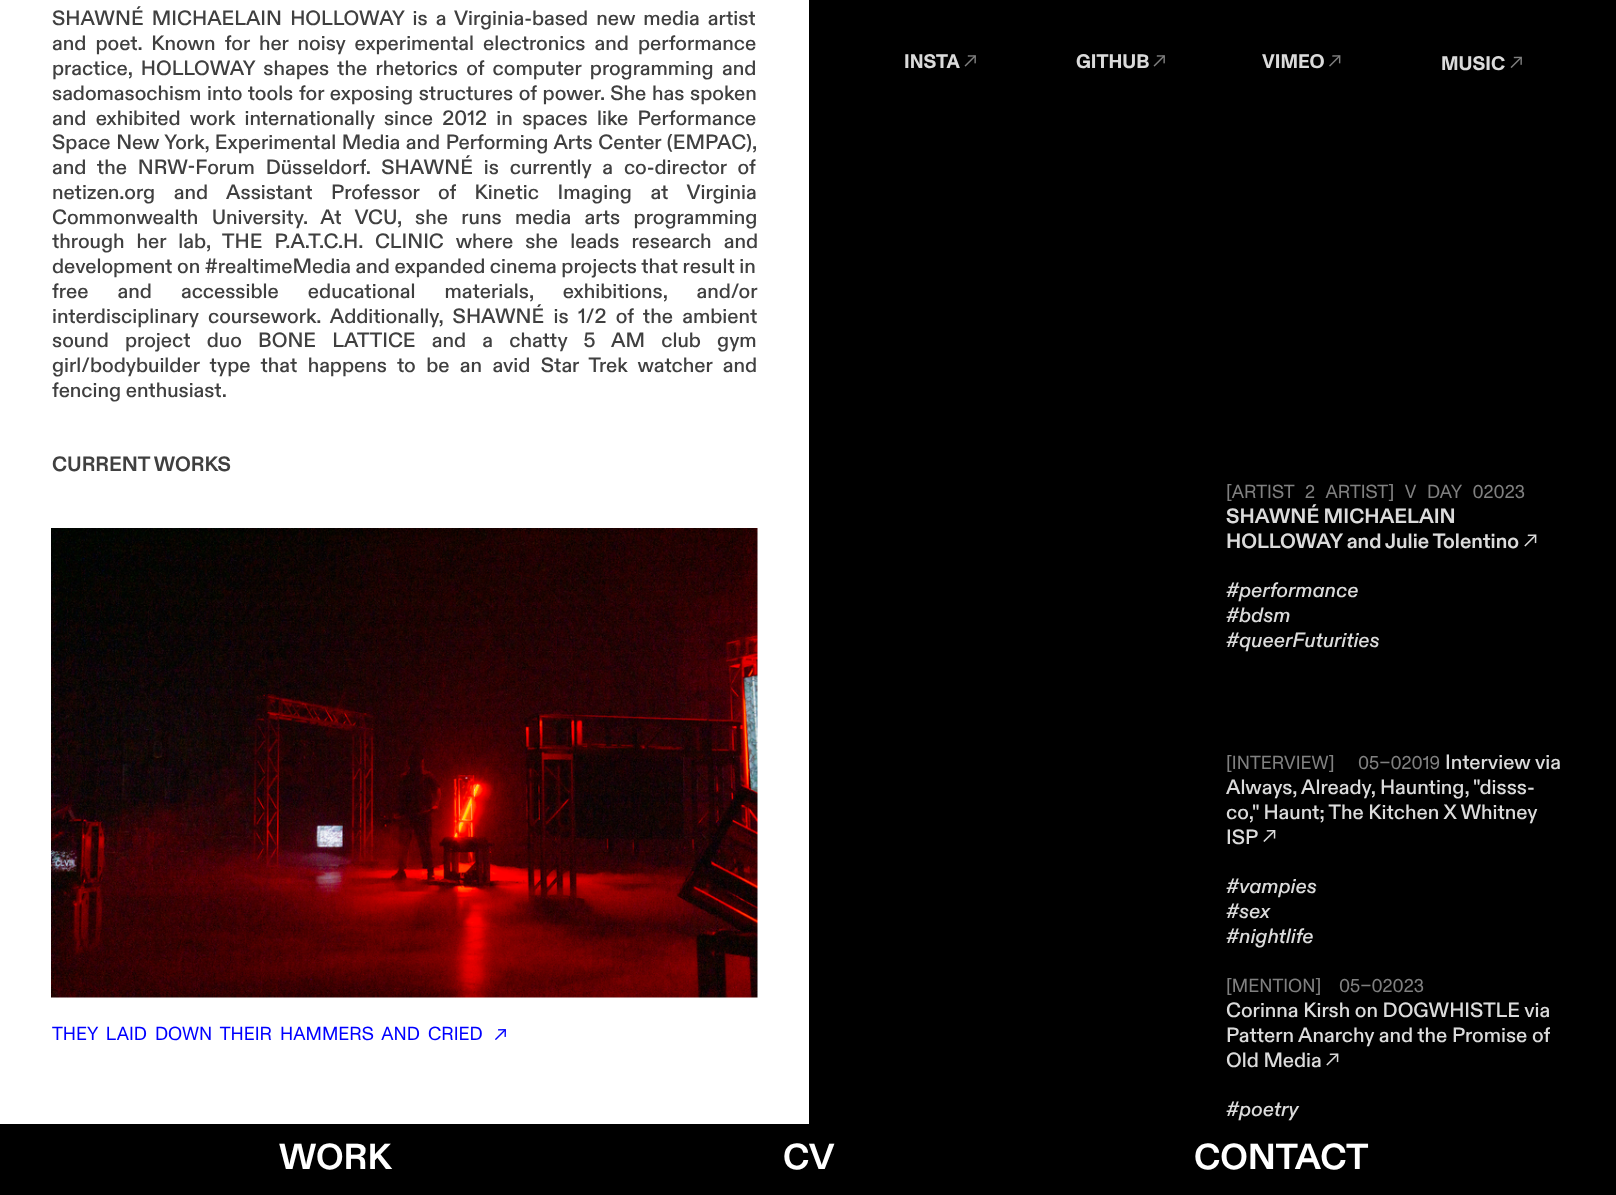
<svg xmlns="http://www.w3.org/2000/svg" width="1616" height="1195">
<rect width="100%" height="100%" fill="#fff"/>
<text x="52" y="25" word-spacing="3.5" style="font-family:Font;font-size:20.65px;font-weight:500;fill:#404040">SHAWNÉ MICHAELAIN HOLLOWAY is a Virginia-based new media artist</text>
<text x="52" y="50" word-spacing="4.5" style="font-family:Font;font-size:20.65px;font-weight:500;fill:#404040">and poet. Known for her noisy experimental electronics and performance</text>
<text x="52" y="75" word-spacing="3.75" style="font-family:Font;font-size:20.65px;font-weight:500;fill:#404040">practice, HOLLOWAY shapes the rhetorics of computer programming and</text>
<text x="52" y="100" word-spacing="1.1" style="font-family:Font;font-size:20.65px;font-weight:500;fill:#404040">sadomasochism into tools for exposing structures of power. She has spoken</text>
<text x="52" y="125" word-spacing="4.75" style="font-family:Font;font-size:20.65px;font-weight:500;fill:#404040">and exhibited work internationally since 2012 in spaces like Performance</text>
<text x="52" y="149" word-spacing="1" style="font-family:Font;font-size:20.65px;font-weight:500;fill:#404040">Space New York, Experimental Media and Performing Arts Center (EMPAC),</text>
<text x="52" y="174" word-spacing="6.25" style="font-family:Font;font-size:20.65px;font-weight:500;fill:#404040">and the NRW-Forum Düsseldorf. SHAWNÉ is currently a co-director of</text>
<text x="52" y="199" word-spacing="14" style="font-family:Font;font-size:20.65px;font-weight:500;fill:#404040">netizen.org and Assistant Professor of Kinetic Imaging at Virginia</text>
<text x="52" y="224" word-spacing="8.75" style="font-family:Font;font-size:20.65px;font-weight:500;fill:#404040">Commonwealth University︎︎︎. At VCU, she runs media arts programming</text>
<text x="52" y="248" word-spacing="7.5" style="font-family:Font;font-size:20.65px;font-weight:500;fill:#404040">through her lab, THE P.A.T.C.H. CLINIC where she leads research and</text>
<text x="52" y="273" style="font-family:Font;font-size:20.65px;font-weight:500;fill:#404040">development on #realtimeMedia and expanded cinema projects that result in</text>
<text x="52" y="298" word-spacing="24.5" style="font-family:Font;font-size:20.65px;font-weight:500;fill:#404040">free and accessible educational materials, exhibitions, and/or</text>
<text x="52" y="323" word-spacing="4.75" style="font-family:Font;font-size:20.65px;font-weight:500;fill:#404040">interdisciplinary coursework. Additionally, SHAWNÉ is 1/2 of the ambient</text>
<text x="52" y="347" word-spacing="11.6" style="font-family:Font;font-size:20.65px;font-weight:500;fill:#404040">sound project duo BONE LATTICE︎︎︎ and a chatty 5 AM club gym</text>
<text x="52" y="372" word-spacing="5.75" style="font-family:Font;font-size:20.65px;font-weight:500;fill:#404040">girl/bodybuilder type that happens to be an avid Star Trek watcher and</text>
<text x="52" y="397" style="font-family:Font;font-size:20.65px;font-weight:500;fill:#404040">fencing enthusiast.</text>
<text x="52" y="471" style="font-family:Font;font-size:20.65px;font-weight:bold;fill:#404040">CURRENT WORKS</text>
<image x="51" y="528" width="707" height="470" href="media/1.png"/>
<text x="52" y="1040" word-spacing="3.75" style="font-family:Font;font-size:18.9px;fill:#00f">THEY LAID DOWN THEIR HAMMERS AND CRIED</text>
<image x="495" y="1029" width="11" height="11" href="media/2.png"/>
<rect x="809" width="807" height="1124" fill="#000"/>
<text x="904" y="68" style="font-family:'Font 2';font-size:19.5px;font-weight:bold;fill:#dbdbdb">INSTA</text>
<image x="964" y="55" width="12" height="12" href="media/3.png"/>
<text x="1076" y="68" style="font-family:'Font 2';font-size:19.5px;font-weight:bold;fill:#dbdbdb">GITHUB</text>
<image x="1153" y="55" width="12" height="12" href="media/3.png"/>
<text x="1262" y="68" style="font-family:'Font 2';font-size:19.5px;font-weight:bold;fill:#dbdbdb">VIMEO</text>
<image x="1329" y="55" width="12" height="12" href="media/4.png"/>
<text x="1441" y="70" style="font-family:'Font 2';font-size:19.5px;font-weight:bold;fill:#dbdbdb">MUSIC</text>
<image x="1510" y="56" width="12" height="12" href="media/5.png"/>
<text x="1226" y="498" word-spacing="6.75" style="font-family:Font;font-size:18.9px;fill:#808080">[ARTIST 2 ARTIST] V DAY 02023</text>
<text x="1226" y="523" style="font-family:Font;font-size:20.65px;font-weight:bold;fill:#dbdbdb">SHAWNÉ MICHAELAIN</text>
<text x="1226" y="548" style="font-family:Font;font-size:20.65px;font-weight:bold;fill:#dbdbdb">HOLLOWAY and Julie Tolentino</text>
<image x="1524" y="534" width="13" height="13" href="media/6.png"/>
<text x="1226" y="597" style="font-family:Font;font-size:20.65px;font-weight:500;font-style:italic;fill:#dbdbdb">#performance</text>
<text x="1226" y="622" style="font-family:Font;font-size:20.65px;font-weight:500;font-style:italic;fill:#dbdbdb">#bdsm</text>
<text x="1226" y="647" style="font-family:Font;font-size:20.65px;font-weight:500;font-style:italic;fill:#dbdbdb">#queerFuturities</text>
<text x="1226" y="769" style="font-family:Font;font-size:18.9px;fill:#808080">[INTERVIEW]</text>
<text x="1358" y="769" style="font-family:Font;font-size:18.9px;fill:#808080">05–02019</text>
<text x="1445" y="769" style="font-family:Font;font-size:20.65px;font-weight:500;fill:#dbdbdb">Interview via</text>
<text x="1226" y="794" style="font-family:Font;font-size:20.65px;font-weight:500;fill:#dbdbdb">Always, Already, Haunting, "disss-</text>
<text x="1226" y="819" style="font-family:Font;font-size:20.65px;font-weight:500;fill:#dbdbdb">co," Haunt; The Kitchen X Whitney</text>
<text x="1226" y="844" style="font-family:Font;font-size:20.65px;font-weight:500;fill:#dbdbdb">ISP</text>
<image x="1263" y="830" width="13" height="12" href="media/7.png"/>
<text x="1226" y="893" style="font-family:Font;font-size:20.65px;font-weight:500;font-style:italic;fill:#dbdbdb">#vampies</text>
<text x="1226" y="918" style="font-family:Font;font-size:20.65px;font-weight:500;font-style:italic;fill:#dbdbdb">#sex</text>
<text x="1226" y="943" style="font-family:Font;font-size:20.65px;font-weight:500;font-style:italic;fill:#dbdbdb">#nightlife</text>
<text x="1226" y="992" style="font-family:Font;font-size:18.9px;fill:#808080">[MENTION]</text>
<text x="1339" y="992" style="font-family:Font;font-size:18.9px;fill:#808080">05–02023</text>
<text x="1226" y="1017" style="font-family:Font;font-size:20.65px;font-weight:500;fill:#dbdbdb">Corinna Kirsh on DOGWHISTLE via</text>
<text x="1226" y="1042" style="font-family:Font;font-size:20.65px;font-weight:500;fill:#dbdbdb">Pattern Anarchy and the Promise of</text>
<text x="1226" y="1067" style="font-family:Font;font-size:20.65px;font-weight:500;fill:#dbdbdb">Old Media</text>
<image x="1326" y="1053" width="13" height="13" href="media/6.png"/>
<text x="1226" y="1116" style="font-family:Font;font-size:20.65px;font-weight:500;font-style:italic;fill:#dbdbdb">#poetry</text>
<rect y="1124" width="1616" height="71" fill="#000"/>
<text x="279" y="1169" style="font-family:Font;font-size:36px;font-weight:bold;fill:#fff">WORK</text>
<text x="783" y="1169" style="font-family:Font;font-size:36px;font-weight:bold;fill:#fff">CV</text>
<text x="1194" y="1169" style="font-family:Font;font-size:36px;font-weight:bold;fill:#fff">CONTACT</text>
</svg>
